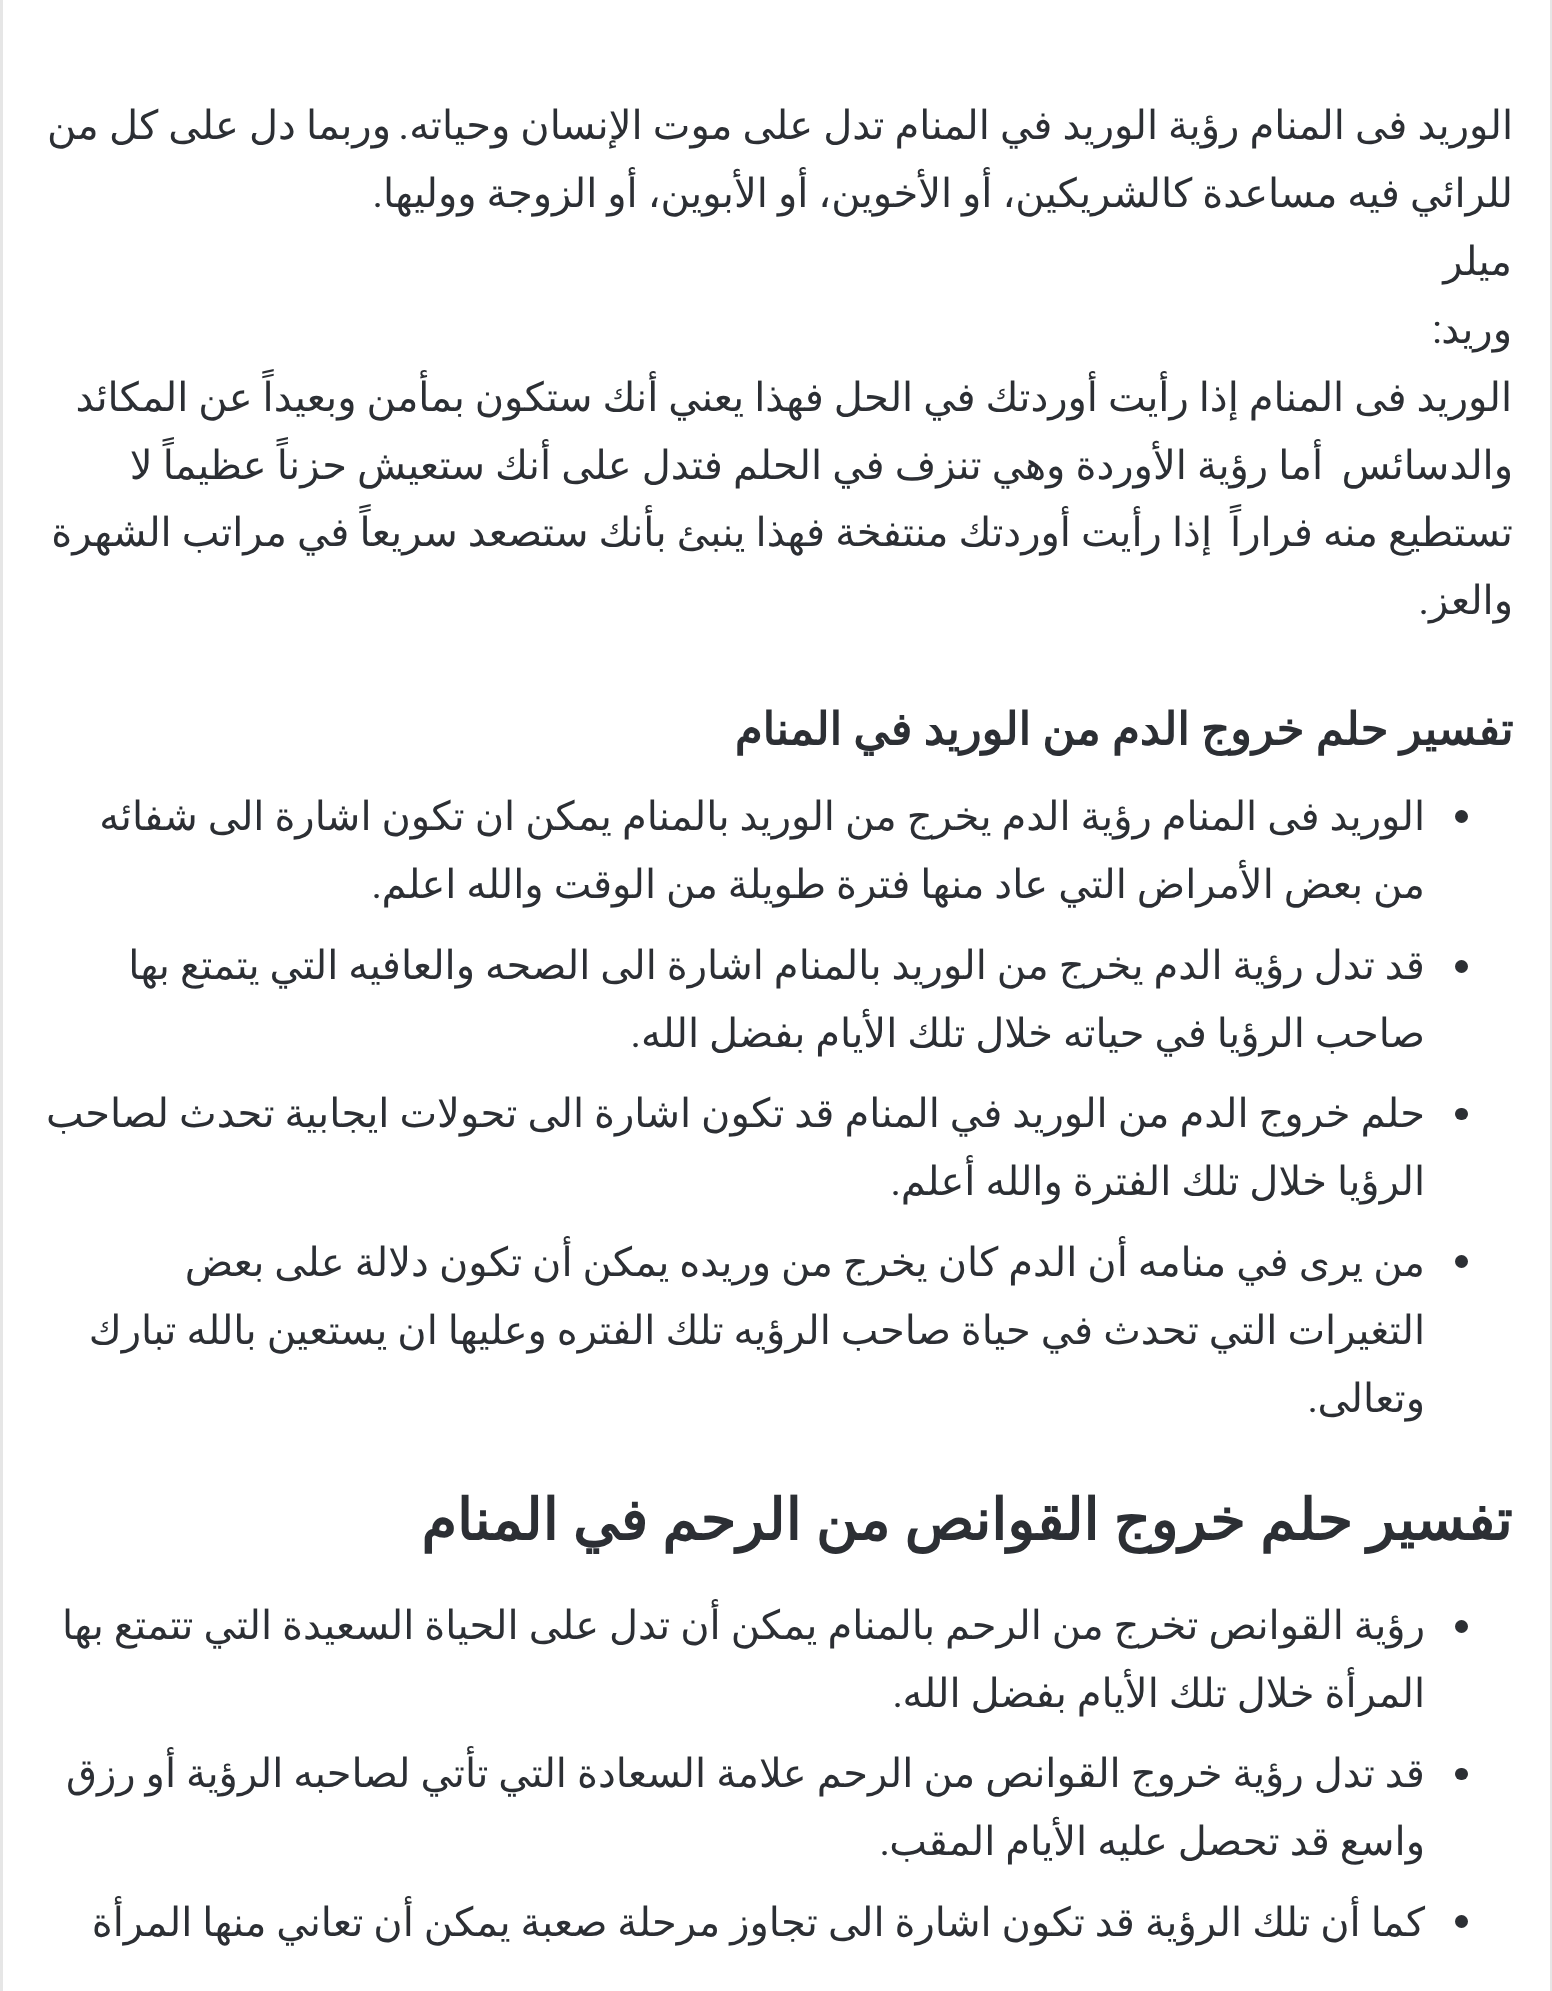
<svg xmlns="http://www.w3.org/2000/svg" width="1552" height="1991">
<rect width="100%" height="100%" fill="#fff"/>
<rect x="1.5" y="-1.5" width="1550" height="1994" fill="none" stroke="#e6e6e6" stroke-width="3"/>
<text x="1513" y="139" word-spacing="-2.6" style="font-family:DejaVu Sans;font-size:40px;direction:rtl;fill:#2c2f34">الوريد فی المنام رؤية الوريد في المنام تدل على موت الإنسان وحياته</text>
<text x="409" y="139" style="font-family:Roboto;font-size:40px;direction:rtl;fill:#2c2f34">.</text>
<text x="391" y="139" word-spacing="-2.6" style="font-family:DejaVu Sans;font-size:40px;direction:rtl;fill:#2c2f34">وربما دل على كل من</text>
<text x="1513" y="207" word-spacing="-2.75" style="font-family:DejaVu Sans;font-size:40px;direction:rtl;fill:#2c2f34">للرائي فيه مساعدة كالشريكين، أو الأخوين، أو الأبوين، أو الزوجة ووليها</text>
<text x="383" y="207" style="font-family:Roboto;font-size:40px;direction:rtl;fill:#2c2f34">.</text>
<text x="1512" y="275" style="font-family:DejaVu Sans;font-size:40px;direction:rtl;fill:#2c2f34">میلر</text>
<text x="1512" y="343" style="font-family:DejaVu Sans;font-size:40px;direction:rtl;fill:#2c2f34">وريد</text>
<text x="1442" y="343" style="font-family:Roboto;font-size:40px;direction:rtl;fill:#2c2f34">:</text>
<text x="1512" y="411" word-spacing="-2.75" style="font-family:DejaVu Sans;font-size:40px;direction:rtl;fill:#2c2f34">الوريد فی المنام إذا رأيت أوردتك في الحل فهذا يعني أنك ستكون بمأمن وبعيداً عن المكائد</text>
<text x="1513" y="479" style="font-family:DejaVu Sans;font-size:40px;direction:rtl;fill:#2c2f34">والدسائس</text>
<text x="1323" y="479" word-spacing="-2.6" style="font-family:DejaVu Sans;font-size:40px;direction:rtl;fill:#2c2f34">أما رؤية الأوردة وهي تنزف في الحلم فتدل على أنك ستعيش حزناً عظيماً لا</text>
<text x="1513" y="546" word-spacing="-2.6" style="font-family:DejaVu Sans;font-size:40px;direction:rtl;fill:#2c2f34">تستطيع منه فراراً</text>
<text x="1212" y="546" word-spacing="-2.6" style="font-family:DejaVu Sans;font-size:40px;direction:rtl;fill:#2c2f34">إذا رأيت أوردتك منتفخة فهذا ينبئ بأنك ستصعد سريعاً في مراتب الشهرة</text>
<text x="1513" y="614" style="font-family:DejaVu Sans;font-size:40px;direction:rtl;fill:#2c2f34">والعز</text>
<text x="1429" y="614" style="font-family:Roboto;font-size:40px;direction:rtl;fill:#2c2f34">.</text>
<text x="1513" y="745" word-spacing="-3" style="font-family:DejaVu Sans;font-size:45px;font-weight:bold;direction:rtl;fill:#2c2f34">تفسير حلم خروج الدم من الوريد في المنام</text>
<circle cx="1461.5" cy="816.5" r="6.5" fill="#2c2f34"/>
<text x="1425" y="830" word-spacing="-2.75" style="font-family:DejaVu Sans;font-size:40px;direction:rtl;fill:#2c2f34">الوريد فی المنام رؤية الدم يخرج من الوريد بالمنام يمكن ان تكون اشارة الى شفائه</text>
<text x="1425" y="898" word-spacing="-2.75" style="font-family:DejaVu Sans;font-size:40px;direction:rtl;fill:#2c2f34">من بعض الأمراض التي عاد منها فترة طويلة من الوقت والله اعلم</text>
<text x="382" y="898" style="font-family:Roboto;font-size:40px;direction:rtl;fill:#2c2f34">.</text>
<circle cx="1461.5" cy="966.5" r="6.5" fill="#2c2f34"/>
<text x="1425" y="979" word-spacing="-2.75" style="font-family:DejaVu Sans;font-size:40px;direction:rtl;fill:#2c2f34">قد تدل رؤية الدم يخرج من الوريد بالمنام اشارة الى الصحه والعافيه التي يتمتع بها</text>
<text x="1425" y="1047" word-spacing="-2.75" style="font-family:DejaVu Sans;font-size:40px;direction:rtl;fill:#2c2f34">صاحب الرؤيا في حياته خلال تلك الأيام بفضل الله</text>
<text x="641" y="1047" style="font-family:Roboto;font-size:40px;direction:rtl;fill:#2c2f34">.</text>
<rect x="1455" y="1108" width="13" height="12" rx="6" fill="#2c2f34"/>
<text x="1425" y="1127" word-spacing="-2.75" style="font-family:DejaVu Sans;font-size:40px;direction:rtl;fill:#2c2f34">حلم خروج الدم من الوريد في المنام قد تكون اشارة الى تحولات ايجابية تحدث لصاحب</text>
<text x="1425" y="1195" word-spacing="-2.75" style="font-family:DejaVu Sans;font-size:40px;direction:rtl;fill:#2c2f34">الرؤيا خلال تلك الفترة والله أعلم</text>
<text x="901" y="1195" style="font-family:Roboto;font-size:40px;direction:rtl;fill:#2c2f34">.</text>
<circle cx="1461.5" cy="1261.5" r="6.5" fill="#2c2f34"/>
<text x="1425" y="1276" word-spacing="-2.75" style="font-family:DejaVu Sans;font-size:40px;direction:rtl;fill:#2c2f34">من يرى في منامه أن الدم كان يخرج من وريده يمكن أن تكون دلالة على بعض</text>
<text x="1425" y="1344" word-spacing="-2.75" style="font-family:DejaVu Sans;font-size:40px;direction:rtl;fill:#2c2f34">التغيرات التي تحدث في حياة صاحب الرؤيه تلك الفتره وعليها ان يستعين بالله تبارك</text>
<text x="1425" y="1412" style="font-family:DejaVu Sans;font-size:40px;direction:rtl;fill:#2c2f34">وتعالى</text>
<text x="1318" y="1412" style="font-family:Roboto;font-size:40px;direction:rtl;fill:#2c2f34">.</text>
<text x="1512" y="1540" word-spacing="-4" style="font-family:DejaVu Sans;font-size:57.5px;font-weight:bold;direction:rtl;fill:#2c2f34">تفسير حلم خروج القوانص من الرحم في المنام</text>
<circle cx="1461.5" cy="1626.5" r="6.5" fill="#2c2f34"/>
<text x="1425" y="1639" word-spacing="-2.75" style="font-family:DejaVu Sans;font-size:40px;direction:rtl;fill:#2c2f34">رؤية القوانص تخرج من الرحم بالمنام يمكن أن تدل على الحياة السعيدة التي تتمتع بها</text>
<text x="1425" y="1707" word-spacing="-2.75" style="font-family:DejaVu Sans;font-size:40px;direction:rtl;fill:#2c2f34">المرأة خلال تلك الأيام بفضل الله</text>
<text x="903" y="1707" style="font-family:Roboto;font-size:40px;direction:rtl;fill:#2c2f34">.</text>
<rect x="1455" y="1768" width="13" height="12" rx="6" fill="#2c2f34"/>
<text x="1425" y="1787" word-spacing="-2.75" style="font-family:DejaVu Sans;font-size:40px;direction:rtl;fill:#2c2f34">قد تدل رؤية خروج القوانص من الرحم علامة السعادة التي تأتي لصاحبه الرؤية أو رزق</text>
<text x="1425" y="1855" word-spacing="-2.75" style="font-family:DejaVu Sans;font-size:40px;direction:rtl;fill:#2c2f34">واسع قد تحصل عليه الأيام المقب</text>
<text x="890" y="1855" style="font-family:Roboto;font-size:40px;direction:rtl;fill:#2c2f34">.</text>
<circle cx="1461.5" cy="1921.5" r="6.5" fill="#2c2f34"/>
<text x="1425" y="1936" word-spacing="-2.75" style="font-family:DejaVu Sans;font-size:40px;direction:rtl;fill:#2c2f34">كما أن تلك الرؤية قد تكون اشارة الى تجاوز مرحلة صعبة يمكن أن تعاني منها المرأة</text>
</svg>
